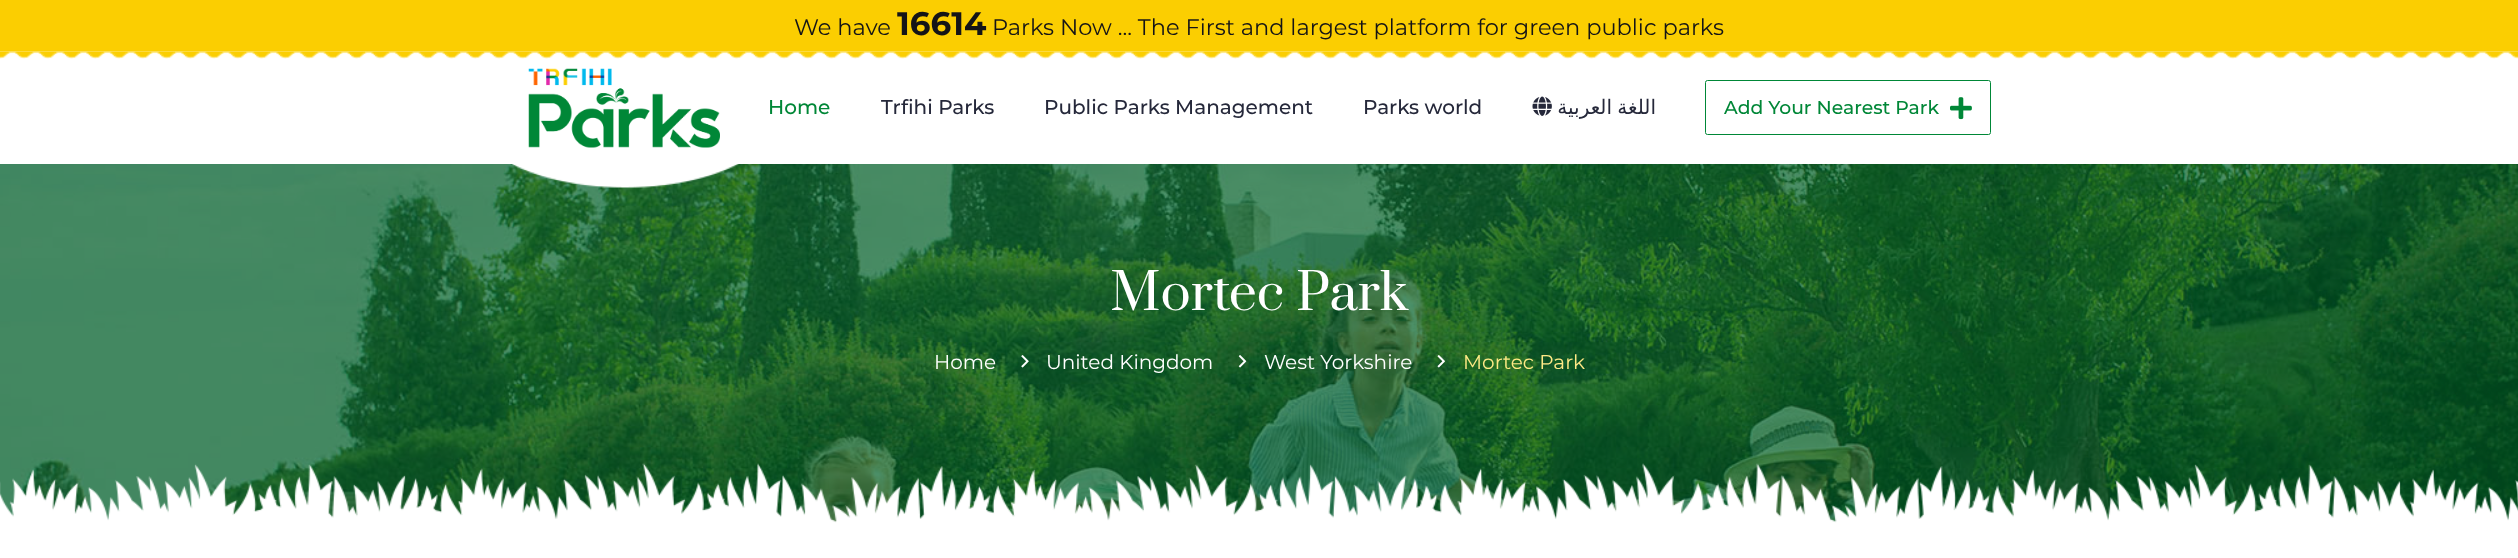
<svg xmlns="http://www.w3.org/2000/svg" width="2518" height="558">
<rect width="100%" height="100%" fill="#fff"/>
<rect width="2518" height="51" fill="#fbce01"/>
<text x="794" y="35" style="font-family:Montserrat;font-size:22.5px;fill:#141417">We have</text>
<text x="897" y="35" style="font-family:Montserrat;font-size:32.5px;font-weight:bold;fill:#141417">16614</text>
<text x="992" y="35" style="font-family:Montserrat;font-size:22.5px;fill:#141417">Parks Now ... The First and largest platform for green public parks</text>
<image x="0" y="51" width="2518" height="8" href="media/1.png"/>
<image x="528" y="68" width="192" height="80" href="media/2.png"/>
<image x="0" y="164" width="2518" height="359" href="media/6.png"/>
<image x="512" y="164" width="227" height="24" href="media/3.png"/>
<text x="768" y="114" style="font-family:Montserrat;font-size:20px;font-weight:500;fill:#008737">Home</text>
<text x="881" y="114" style="font-family:Montserrat;font-size:20px;font-weight:500;fill:#25283a">Trfihi Parks</text>
<text x="1044" y="114" style="font-family:Montserrat;font-size:20px;font-weight:500;fill:#25283a">Public Parks Management</text>
<text x="1363" y="114" style="font-family:Montserrat;font-size:20px;font-weight:500;fill:#25283a">Parks world</text>
<image x="1532" y="96" width="20" height="20" href="media/4.png"/>
<text x="1656" y="114" word-spacing="-1" style="font-family:DejaVu Sans;font-size:20px;direction:rtl;fill:#25283a">اللغة العربية</text>
<rect x="1705.5" y="80.5" width="285" height="54" rx="2" fill="none" stroke="#008737"/>
<text x="1724" y="114" style="font-family:Montserrat;font-size:18.75px;font-weight:500;fill:#008737">Add Your Nearest Park</text>
<image x="1950" y="97" width="22" height="23" href="media/5.png"/>
<text x="1110" y="310" style="font-family:Prata;font-size:50px;fill:#fff">Mortec Park</text>
<text x="934" y="369" style="font-family:Montserrat;font-size:20px;fill:#fff">Home</text>
<image x="1021" y="355" width="8" height="13" href="media/7.png"/>
<text x="1046" y="369" style="font-family:Montserrat;font-size:20px;fill:#fff">United Kingdom</text>
<image x="1238" y="355" width="9" height="13" href="media/8.png"/>
<text x="1264" y="369" style="font-family:Montserrat;font-size:20px;fill:#fff">West Yorkshire</text>
<image x="1437" y="355" width="8" height="13" href="media/9.png"/>
<text x="1463" y="369" style="font-family:Montserrat;font-size:20px;fill:#ffe986">Mortec Park</text>
<image x="0" y="463" width="2518" height="67" href="media/10.png"/>
</svg>
